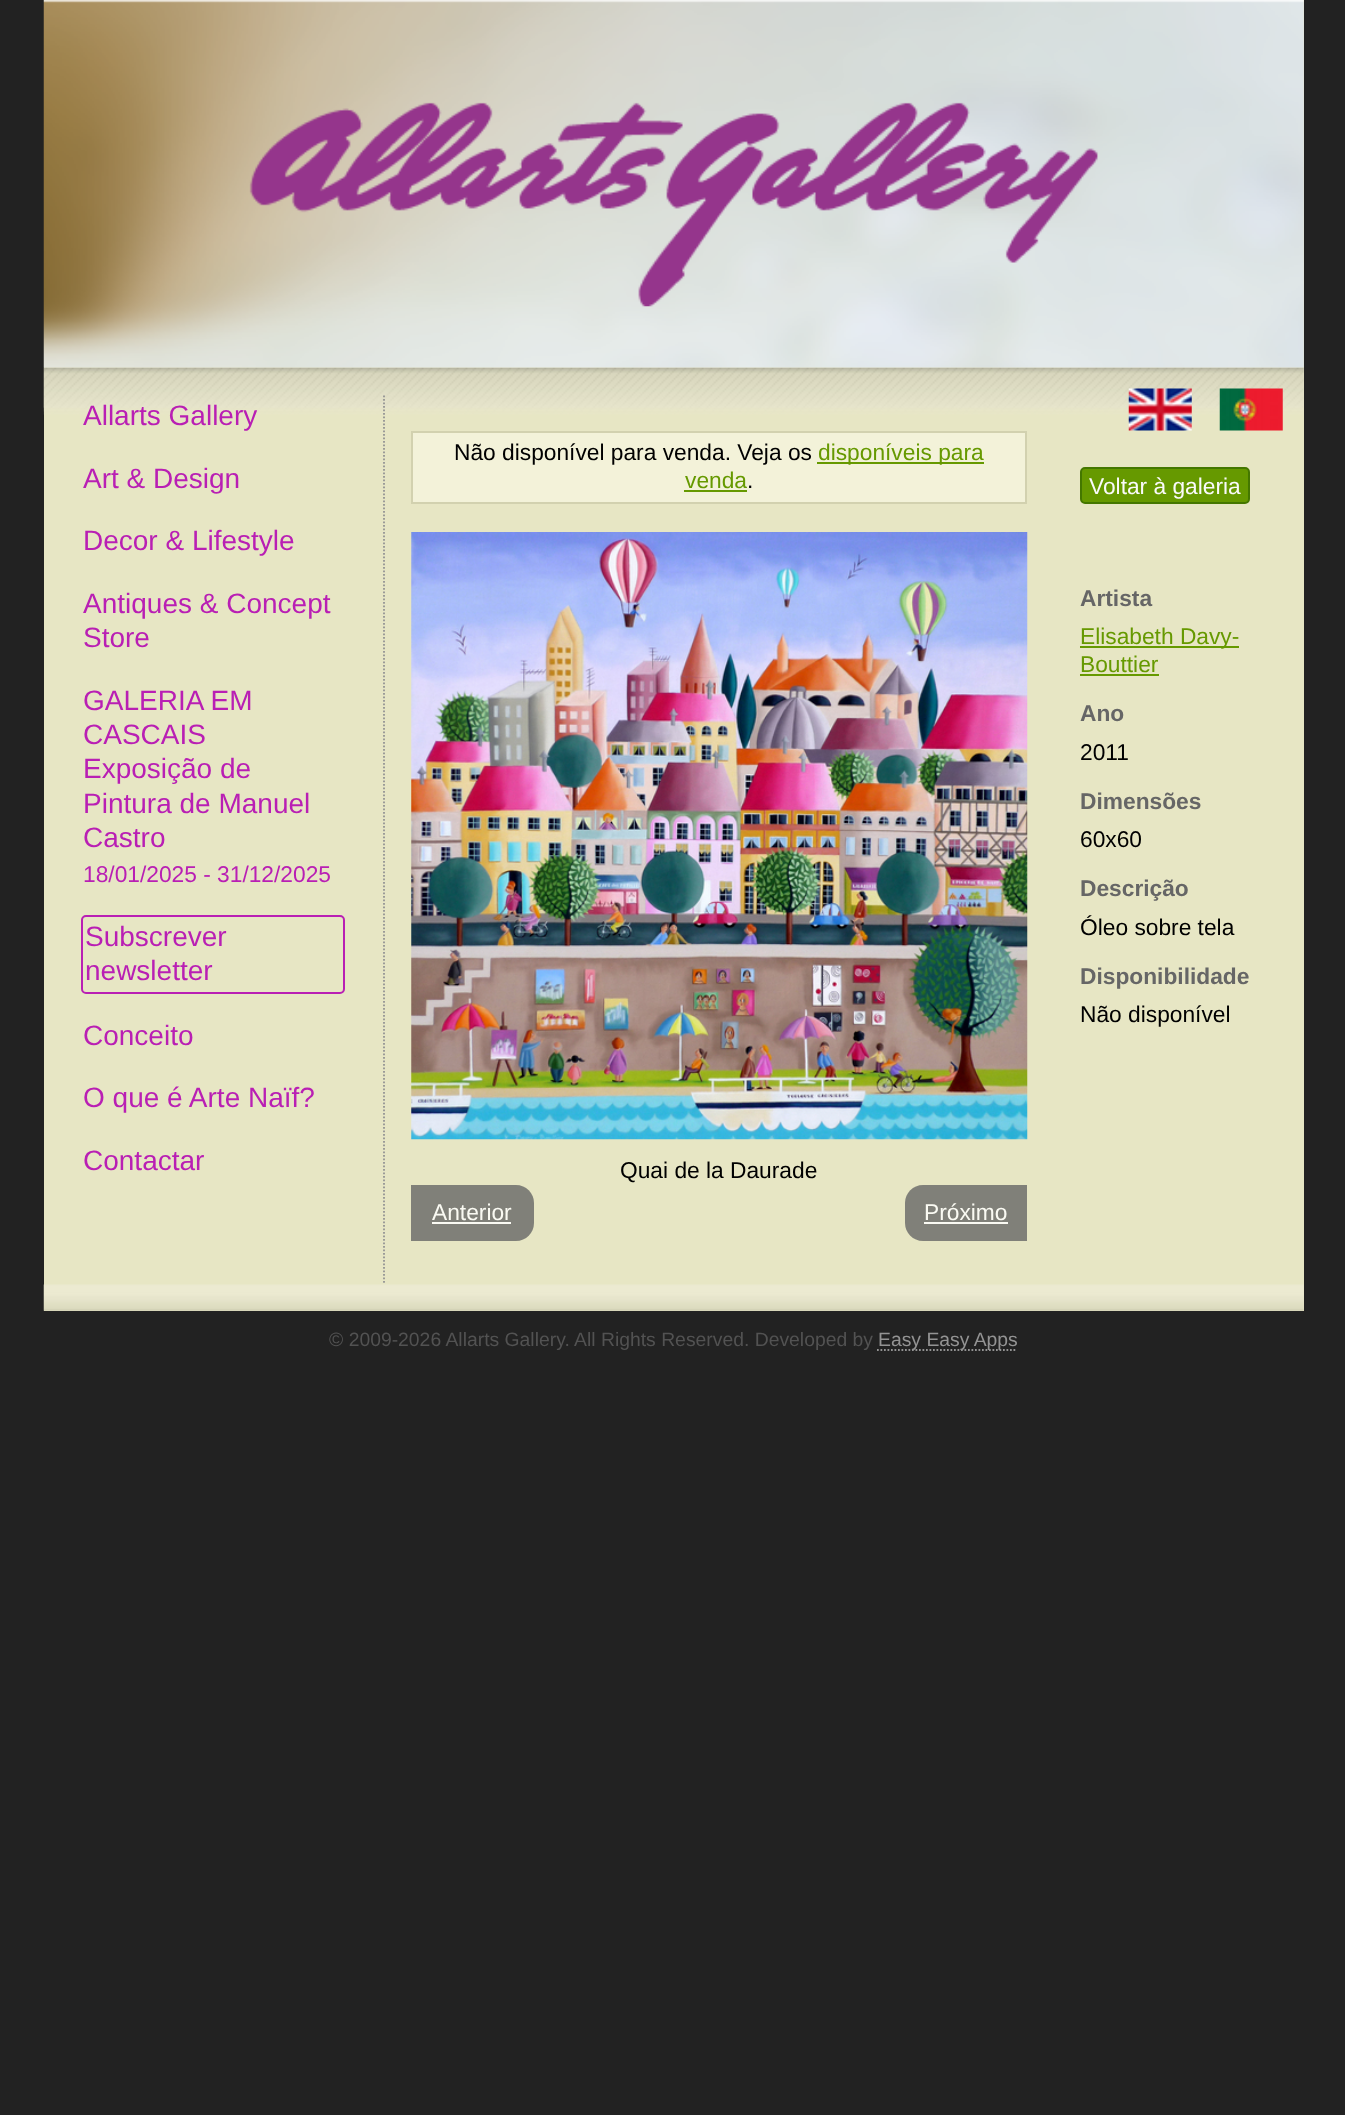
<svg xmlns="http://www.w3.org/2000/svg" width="1345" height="2115">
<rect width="100%" height="100%" fill="#222"/>
<rect x="44" width="1260" height="1311" fill="#e7e6c4"/>
<image x="43" y="367" width="1261" height="48" href="media/1.png"/>
<image x="43" y="0" width="1261" height="368" href="media/2.png"/>
<image x="249" y="102" width="849" height="205" href="media/3.png"/>
<image x="43" y="1284" width="1261" height="27" href="media/4.png"/>
<path d="M384 395.5v887.5" fill="none" stroke="#939393" stroke-width="1.8" stroke-dasharray="1.75 1.75"/>
<text x="83" y="425" style="font-family:Liberation Sans;font-size:28px;fill:#b91fb4">Allarts Gallery</text>
<text x="83" y="488" style="font-family:Liberation Sans;font-size:28px;fill:#b91fb4">Art &amp; Design</text>
<text x="83" y="550" style="font-family:Liberation Sans;font-size:28px;fill:#b91fb4">Decor &amp; Lifestyle</text>
<text x="83" y="613" style="font-family:Liberation Sans;font-size:28px;fill:#b91fb4">Antiques &amp; Concept</text>
<text x="83" y="647" style="font-family:Liberation Sans;font-size:28px;fill:#b91fb4">Store</text>
<text x="83" y="710" style="font-family:Liberation Sans;font-size:28px;fill:#b91fb4">GALERIA EM</text>
<text x="83" y="744" style="font-family:Liberation Sans;font-size:28px;fill:#b91fb4">CASCAIS</text>
<text x="83" y="778" style="font-family:Liberation Sans;font-size:28px;fill:#b91fb4">Exposição de</text>
<text x="83" y="813" style="font-family:Liberation Sans;font-size:28px;fill:#b91fb4">Pintura de Manuel</text>
<text x="83" y="847" style="font-family:Liberation Sans;font-size:28px;fill:#b91fb4">Castro</text>
<text x="83" y="882" style="font-family:Liberation Sans;font-size:22.75px;fill:#b91fb4">18/01/2025 - 31/12/2025</text>
<rect x="82" y="916" width="262" height="77" rx="4" fill="none" stroke="#b91fb4" stroke-width="2"/>
<text x="85" y="946" style="font-family:Liberation Sans;font-size:28px;fill:#b91fb4">Subscrever</text>
<text x="85" y="980" style="font-family:Liberation Sans;font-size:28px;fill:#b91fb4">newsletter</text>
<text x="83" y="1045" style="font-family:Liberation Sans;font-size:28px;fill:#b91fb4">Conceito</text>
<text x="83" y="1107" style="font-family:Liberation Sans;font-size:28px;fill:#b91fb4">O que é Arte Naïf?</text>
<text x="83" y="1170" style="font-family:Liberation Sans;font-size:28px;fill:#b91fb4">Contactar</text>
<image x="1128" y="388" width="64" height="43" href="media/5.png"/>
<image x="1219" y="388" width="64" height="43" href="media/6.png"/>
<rect x="412" y="432" width="614" height="71" fill="#f3f2d9" stroke="#d2d1af" stroke-width="2"/>
<text x="454" y="460" style="font-family:Liberation Sans;font-size:22.75px;fill:#000">Não disponível para venda. Veja os</text>
<rect x="817" y="462" width="167" height="2" fill="#690"/>
<text x="818" y="460" style="font-family:Liberation Sans;font-size:22.75px;fill:#690">disponíveis para</text>
<text x="685" y="488" style="font-family:Liberation Sans;font-size:22.75px;fill:#690">venda</text>
<rect x="684" y="490" width="63" height="2" fill="#690"/>
<text x="747" y="488" style="font-family:Liberation Sans;font-size:22.75px;fill:#000">.</text>
<image x="411" y="532" width="617" height="608" href="media/7.png"/>
<text x="620" y="1178" style="font-family:Liberation Sans;font-size:22.75px;fill:#000">Quai de la Daurade</text>
<path d="M411 1185h105c10 0 18 8 18 18v20c0 10-8 18-18 18h-105z" fill="#808079"/>
<text x="432" y="1220" style="font-family:Liberation Sans;font-size:22.75px;fill:#fafaf3">Anterior</text>
<rect x="432" y="1222" width="79" height="2" fill="#fafaf3"/>
<path d="M923 1185h104v56h-104c-10 0-18-8-18-18v-20c0-10 8-18 18-18z" fill="#808079"/>
<text x="924" y="1220" style="font-family:Liberation Sans;font-size:22.75px;fill:#fafaf3">Próximo</text>
<rect x="924" y="1222" width="84" height="2" fill="#fafaf3"/>
<rect x="1081" y="468" width="168" height="35" rx="4" fill="#690" stroke="#470" stroke-width="2"/>
<text x="1089" y="494" style="font-family:Liberation Sans;font-size:22.75px;fill:#fafafa">Voltar à galeria</text>
<text x="1080" y="606" style="font-family:Liberation Sans;font-size:22.75px;font-weight:bold;fill:#666">Artista</text>
<rect x="1080" y="646" width="159" height="2" fill="#690"/>
<text x="1080" y="644" style="font-family:Liberation Sans;font-size:22.75px;fill:#690">Elisabeth Davy-</text>
<text x="1080" y="672" style="font-family:Liberation Sans;font-size:22.75px;fill:#690">Bouttier</text>
<rect x="1080" y="674" width="79" height="2" fill="#690"/>
<text x="1080" y="721" style="font-family:Liberation Sans;font-size:22.75px;font-weight:bold;fill:#666">Ano</text>
<text x="1080" y="760" style="font-family:Liberation Sans;font-size:22.75px;fill:#000">2011</text>
<text x="1080" y="809" style="font-family:Liberation Sans;font-size:22.75px;font-weight:bold;fill:#666">Dimensões</text>
<text x="1080" y="847" style="font-family:Liberation Sans;font-size:22.75px;fill:#000">60x60</text>
<text x="1080" y="896" style="font-family:Liberation Sans;font-size:22.75px;font-weight:bold;fill:#666">Descrição</text>
<text x="1080" y="935" style="font-family:Liberation Sans;font-size:22.75px;fill:#000">Óleo sobre tela</text>
<text x="1080" y="984" style="font-family:Liberation Sans;font-size:22.75px;font-weight:bold;fill:#666">Disponibilidade</text>
<text x="1080" y="1022" style="font-family:Liberation Sans;font-size:22.75px;fill:#000">Não disponível</text>
<text x="329" y="1346" style="font-family:Liberation Sans;font-size:19.35px;fill:#525252">© 2009-2026 Allarts Gallery. All Rights Reserved. Developed by</text>
<path d="M877 1350h140" fill="none" stroke="#939393" stroke-width="1.8" stroke-dasharray="1.75 1.75"/>
<text x="878" y="1346" style="font-family:Liberation Sans;font-size:19.35px;fill:#939393">Easy Easy Apps</text>
</svg>
